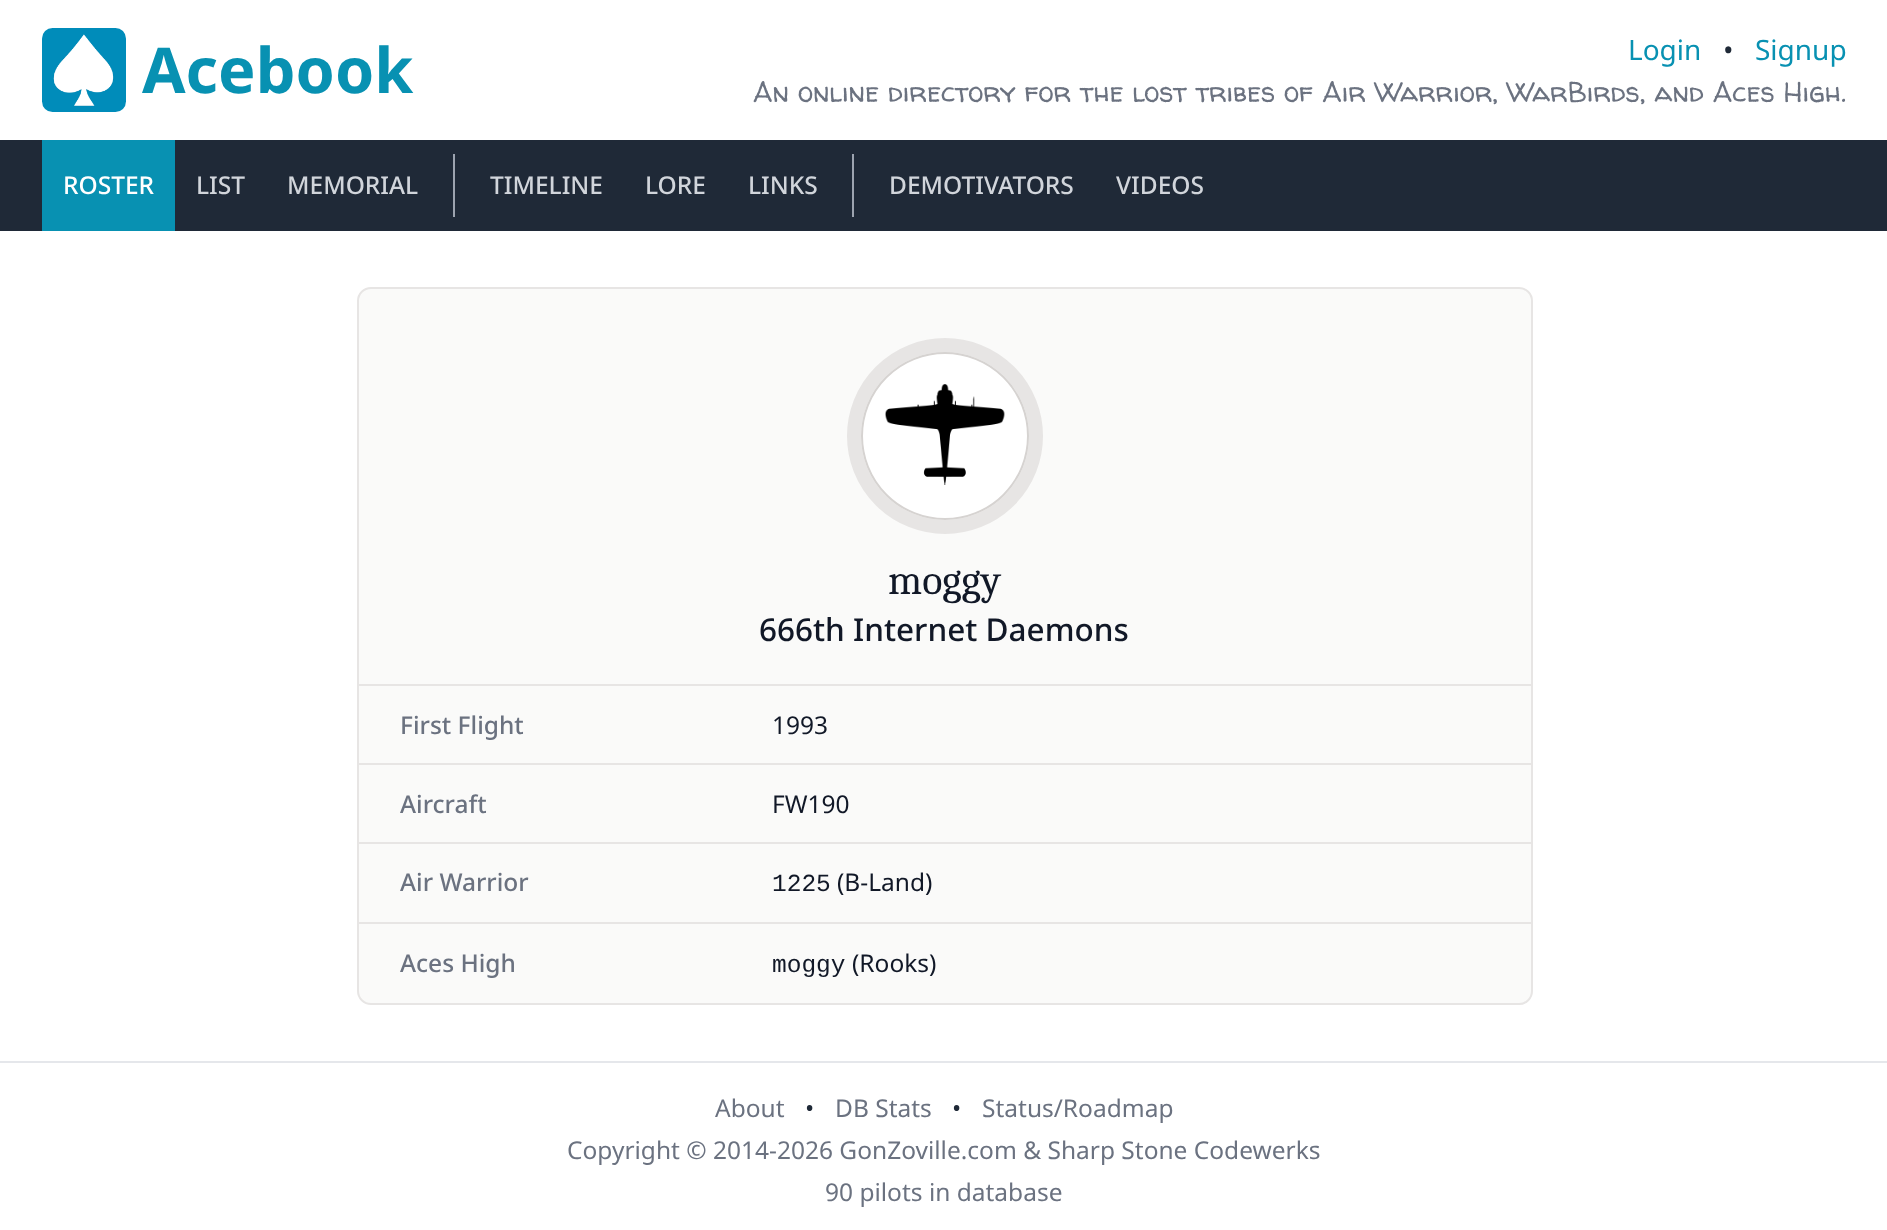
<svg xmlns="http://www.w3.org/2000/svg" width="1887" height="1230">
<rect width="100%" height="100%" fill="#fff"/>
<image x="42" y="28" width="84" height="84" href="media/1.png"/>
<text x="142" y="93" style="font-family:Noto Sans;font-size:63px;font-weight:bold;fill:#0891b2">Acebook</text>
<text x="1628" y="60" style="font-family:Noto Sans;font-size:28px;fill:#0891b2">Login</text>
<text x="1723" y="60" style="font-family:Noto Sans;font-size:28px;fill:#1f2937">•</text>
<text x="1755" y="60" style="font-family:Noto Sans;font-size:28px;fill:#0891b2">Signup</text>
<text x="753" y="102" style="font-family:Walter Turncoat;font-size:28px;fill:#6b7280">An online directory for the lost tribes of Air Warrior, WarBirds, and Aces High.</text>
<rect y="140" width="1887" height="91" fill="#1f2937"/>
<rect x="42" y="140" width="133" height="91" fill="#0891b2"/>
<text x="63" y="194" style="font-family:Noto Sans;font-size:24.5px;font-weight:500;fill:#fff">ROSTER</text>
<text x="196" y="194" style="font-family:Noto Sans;font-size:24.5px;font-weight:500;fill:#d1d5db">LIST</text>
<text x="287" y="194" style="font-family:Noto Sans;font-size:24.5px;font-weight:500;fill:#d1d5db">MEMORIAL</text>
<rect x="453" y="154" width="2" height="63" fill="#9ca3af"/>
<text x="490" y="194" style="font-family:Noto Sans;font-size:24.5px;font-weight:500;fill:#d1d5db">TIMELINE</text>
<text x="645" y="194" style="font-family:Noto Sans;font-size:24.5px;font-weight:500;fill:#d1d5db">LORE</text>
<text x="748" y="194" style="font-family:Noto Sans;font-size:24.5px;font-weight:500;fill:#d1d5db">LINKS</text>
<rect x="852" y="154" width="2" height="63" fill="#9ca3af"/>
<text x="889" y="194" style="font-family:Noto Sans;font-size:24.5px;font-weight:500;fill:#d1d5db">DEMOTIVATORS</text>
<text x="1116" y="194" style="font-family:Noto Sans;font-size:24.5px;font-weight:500;fill:#d1d5db">VIDEOS</text>
<rect x="358" y="288" width="1174" height="716" rx="13" fill="#fafaf9" stroke="#e7e5e4" stroke-width="2"/>
<circle cx="945" cy="436" r="91" fill="none" stroke="#e7e5e4" stroke-width="14"/>
<circle cx="945" cy="436" r="83" fill="#fff" stroke="#d6d3d1" stroke-width="2"/>
<image x="885" y="384" width="120" height="101" href="media/2.png"/>
<text x="888" y="594" style="font-family:Caladea;font-size:42px;fill:#111827">moggy</text>
<text x="759" y="641" style="font-family:Noto Sans;font-size:31.5px;font-weight:500;fill:#111827">666th Internet Daemons</text>
<rect x="359" y="684" width="1172" height="2" fill="#e7e5e4"/>
<text x="400" y="734" style="font-family:Noto Sans;font-size:24.5px;font-weight:500;fill:#6b7280">First Flight</text>
<text x="772" y="734" style="font-family:Noto Sans;font-size:24.5px;fill:#111827">1993</text>
<rect x="359" y="763" width="1172" height="2" fill="#e7e5e4"/>
<text x="400" y="813" style="font-family:Noto Sans;font-size:24.5px;font-weight:500;fill:#6b7280">Aircraft</text>
<text x="772" y="813" style="font-family:Noto Sans;font-size:24.5px;fill:#111827">FW190</text>
<rect x="359" y="842" width="1172" height="2" fill="#e7e5e4"/>
<text x="400" y="891" style="font-family:Noto Sans;font-size:24.5px;font-weight:500;fill:#6b7280">Air Warrior</text>
<text x="772" y="891" style="font-family:Liberation Mono;font-size:24.5px;fill:#111827">1225</text>
<text x="837" y="891" style="font-family:Noto Sans;font-size:24.5px;fill:#111827">(B-Land)</text>
<rect x="359" y="922" width="1172" height="2" fill="#e7e5e4"/>
<text x="400" y="972" style="font-family:Noto Sans;font-size:24.5px;font-weight:500;fill:#6b7280">Aces High</text>
<text x="772" y="972" style="font-family:Liberation Mono;font-size:24.5px;fill:#111827">moggy</text>
<text x="852" y="972" style="font-family:Noto Sans;font-size:24.5px;fill:#111827">(Rooks)</text>
<rect y="1061" width="1887" height="2" fill="#e5e7eb"/>
<text x="715" y="1117" style="font-family:Noto Sans;font-size:24.5px;fill:#6b7280">About</text>
<text x="805" y="1117" style="font-family:Noto Sans;font-size:24.5px;fill:#1f2937">•</text>
<text x="835" y="1117" style="font-family:Noto Sans;font-size:24.5px;fill:#6b7280">DB Stats</text>
<text x="952" y="1117" style="font-family:Noto Sans;font-size:24.5px;fill:#1f2937">•</text>
<text x="982" y="1117" style="font-family:Noto Sans;font-size:24.5px;fill:#6b7280">Status/Roadmap</text>
<text x="567" y="1159" style="font-family:Noto Sans;font-size:24.5px;fill:#6b7280">Copyright © 2014-2026 GonZoville.com &amp; Sharp Stone Codewerks</text>
<text x="825" y="1201" style="font-family:Noto Sans;font-size:24.5px;fill:#6b7280">90 pilots in database</text>
</svg>
